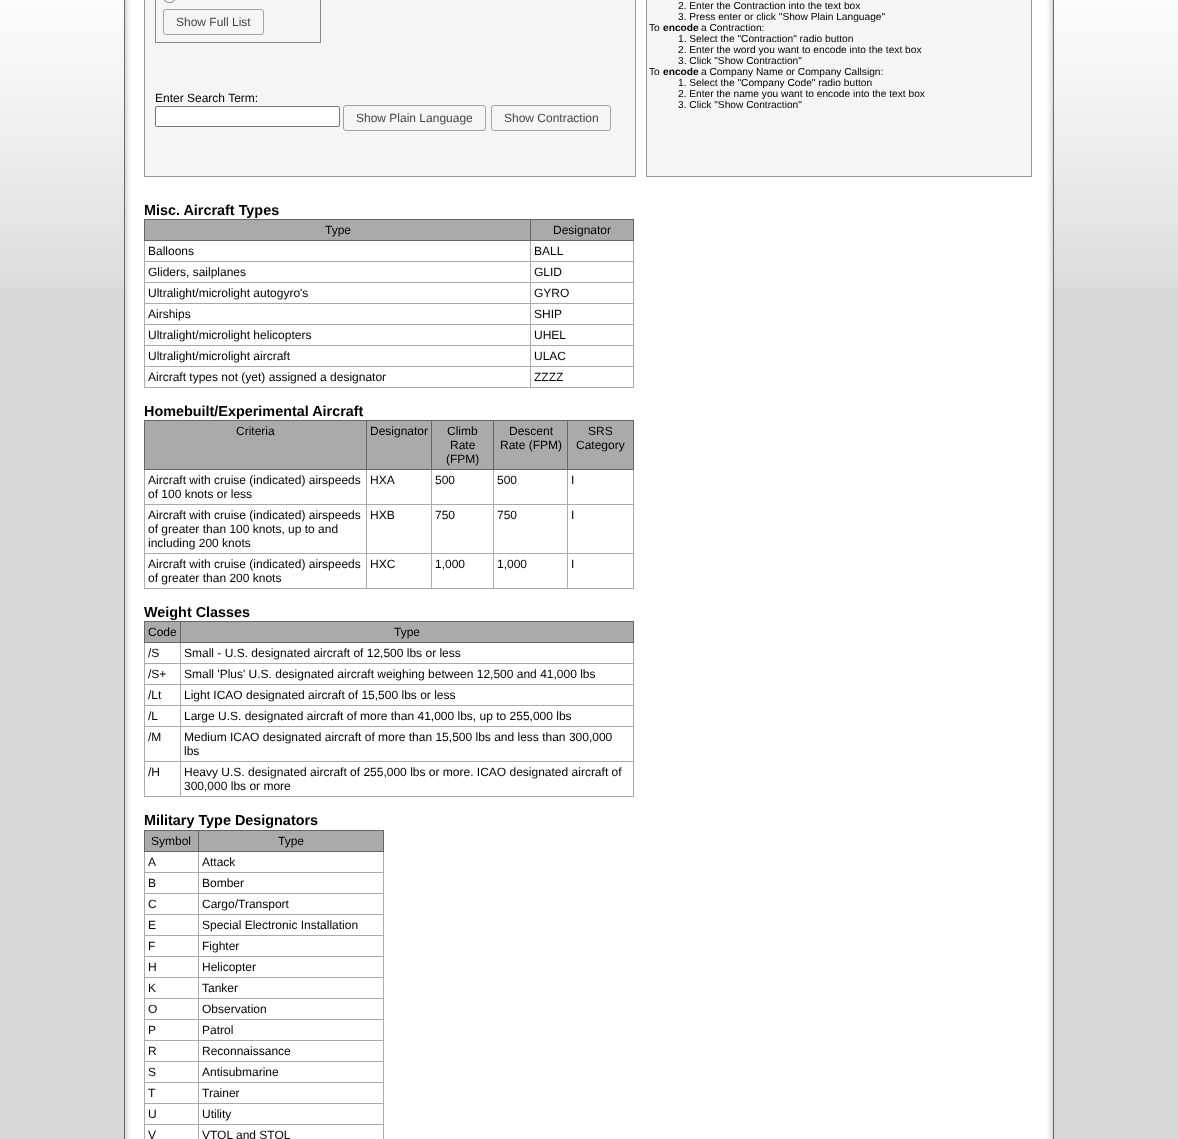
<svg xmlns="http://www.w3.org/2000/svg" width="1178" height="1139">
<rect width="100%" height="100%" fill="#d7d7d7"/>
<image x="0" y="0" width="1178" height="289" href="media/1.png"/>
<image x="124" y="0" width="930" height="1139" href="media/2.png"/>
<rect x="144.5" y="-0.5" width="491" height="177" fill="#f5f5f5" stroke="#999"/>
<rect x="155.5" y="-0.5" width="165" height="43" fill="none" stroke="#888"/>
<rect x="163.5" y="-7.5" width="12" height="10" rx="6" fill="#fff" stroke="#767676"/>
<rect x="163.5" y="9.5" width="100" height="25" rx="2.5" fill="none" stroke="#a4a4a4"/>
<text x="176" y="26" style="font-family:Liberation Sans;font-size:12px;fill:#454545">Show Full List</text>
<text x="155" y="102" style="font-family:Liberation Sans;font-size:12px;fill:#000">Enter Search Term:</text>
<rect x="155.5" y="106.5" width="184" height="20" rx="1.5" fill="#fff" stroke="#767676"/>
<rect x="343.5" y="105.5" width="142" height="25" rx="2.5" fill="none" stroke="#a4a4a4"/>
<text x="356" y="122" style="font-family:Liberation Sans;font-size:12px;fill:#454545">Show Plain Language</text>
<rect x="491.5" y="105.5" width="119" height="25" rx="2.5" fill="none" stroke="#a4a4a4"/>
<text x="504" y="122" style="font-family:Liberation Sans;font-size:12px;fill:#454545">Show Contraction</text>
<rect x="646.5" y="-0.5" width="385" height="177" fill="#f5f5f5" stroke="#999"/>
<text x="678" y="9" style="font-family:Liberation Sans;font-size:10.2px;fill:#000">2. Enter the Contraction into the text box</text>
<text x="678" y="20" style="font-family:Liberation Sans;font-size:10.2px;fill:#000">3. Press enter or click "Show Plain Language"</text>
<text x="649" y="31" style="font-family:Liberation Sans;font-size:10.2px;fill:#000">To</text>
<text x="663" y="31" style="font-family:Liberation Sans;font-size:10.2px;font-weight:bold;fill:#000">encode</text>
<text x="701" y="31" style="font-family:Liberation Sans;font-size:10.2px;fill:#000">a Contraction:</text>
<text x="678" y="42" style="font-family:Liberation Sans;font-size:10.2px;fill:#000">1. Select the "Contraction" radio button</text>
<text x="678" y="53" style="font-family:Liberation Sans;font-size:10.2px;fill:#000">2. Enter the word you want to encode into the text box</text>
<text x="678" y="64" style="font-family:Liberation Sans;font-size:10.2px;fill:#000">3. Click "Show Contraction"</text>
<text x="649" y="75" style="font-family:Liberation Sans;font-size:10.2px;fill:#000">To</text>
<text x="663" y="75" style="font-family:Liberation Sans;font-size:10.2px;font-weight:bold;fill:#000">encode</text>
<text x="701" y="75" style="font-family:Liberation Sans;font-size:10.2px;fill:#000">a Company Name or Company Callsign:</text>
<text x="678" y="86" style="font-family:Liberation Sans;font-size:10.2px;fill:#000">1. Select the "Company Code" radio button</text>
<text x="678" y="97" style="font-family:Liberation Sans;font-size:10.2px;fill:#000">2. Enter the name you want to encode into the text box</text>
<text x="678" y="108" style="font-family:Liberation Sans;font-size:10.2px;fill:#000">3. Click "Show Contraction"</text>
<text x="144" y="215" style="font-family:Liberation Sans;font-size:14.4px;font-weight:bold;fill:#000">Misc. Aircraft Types</text>
<rect x="145" y="220" width="385" height="20" fill="#aaa"/>
<rect x="530" y="219" width="104" height="1" fill="#666"/>
<rect x="144" y="261" width="490" height="1" fill="#aaa"/>
<rect x="144" y="282" width="490" height="1" fill="#aaa"/>
<rect x="144" y="303" width="490" height="1" fill="#aaa"/>
<rect x="144" y="324" width="490" height="1" fill="#aaa"/>
<rect x="144" y="345" width="490" height="1" fill="#aaa"/>
<rect x="144" y="366" width="490" height="1" fill="#aaa"/>
<rect x="633" y="366" width="1" height="22" fill="#aaa"/>
<rect x="633" y="345" width="1" height="22" fill="#aaa"/>
<rect x="633" y="324" width="1" height="22" fill="#aaa"/>
<rect x="633" y="303" width="1" height="22" fill="#aaa"/>
<rect x="633" y="282" width="1" height="22" fill="#aaa"/>
<rect x="633" y="240" width="1" height="43" fill="#aaa"/>
<rect x="633" y="219" width="1" height="22" fill="#666"/>
<rect x="144" y="387" width="490" height="1" fill="#aaa"/>
<rect x="530" y="240" width="1" height="148" fill="#aaa"/>
<rect x="530" y="240" width="104" height="1" fill="#666"/>
<rect x="530" y="219" width="1" height="22" fill="#666"/>
<rect x="144" y="219" width="387" height="1" fill="#666"/>
<rect x="144" y="366" width="1" height="22" fill="#aaa"/>
<rect x="144" y="345" width="1" height="22" fill="#aaa"/>
<rect x="144" y="324" width="1" height="22" fill="#aaa"/>
<rect x="144" y="303" width="1" height="22" fill="#aaa"/>
<rect x="144" y="282" width="1" height="22" fill="#aaa"/>
<rect x="144" y="240" width="1" height="43" fill="#aaa"/>
<rect x="144" y="240" width="387" height="1" fill="#666"/>
<rect x="144" y="219" width="1" height="22" fill="#666"/>
<text x="325" y="234" style="font-family:Liberation Sans;font-size:12px;fill:#000">Type</text>
<rect x="531" y="220" width="102" height="20" fill="#aaa"/>
<text x="553" y="234" style="font-family:Liberation Sans;font-size:12px;fill:#000">Designator</text>
<text x="148" y="255" style="font-family:Liberation Sans;font-size:12px;fill:#000">Balloons</text>
<text x="534" y="255" style="font-family:Liberation Sans;font-size:12px;fill:#000">BALL</text>
<text x="148" y="276" style="font-family:Liberation Sans;font-size:12px;fill:#000">Gliders, sailplanes</text>
<text x="534" y="276" style="font-family:Liberation Sans;font-size:12px;fill:#000">GLID</text>
<text x="148" y="297" style="font-family:Liberation Sans;font-size:12px;fill:#000">Ultralight/microlight autogyro's</text>
<text x="534" y="297" style="font-family:Liberation Sans;font-size:12px;fill:#000">GYRO</text>
<text x="148" y="318" style="font-family:Liberation Sans;font-size:12px;fill:#000">Airships</text>
<text x="534" y="318" style="font-family:Liberation Sans;font-size:12px;fill:#000">SHIP</text>
<text x="148" y="339" style="font-family:Liberation Sans;font-size:12px;fill:#000">Ultralight/microlight helicopters</text>
<text x="534" y="339" style="font-family:Liberation Sans;font-size:12px;fill:#000">UHEL</text>
<text x="148" y="360" style="font-family:Liberation Sans;font-size:12px;fill:#000">Ultralight/microlight aircraft</text>
<text x="534" y="360" style="font-family:Liberation Sans;font-size:12px;fill:#000">ULAC</text>
<text x="148" y="381" style="font-family:Liberation Sans;font-size:12px;fill:#000">Aircraft types not (yet) assigned a designator</text>
<text x="534" y="381" style="font-family:Liberation Sans;font-size:12px;fill:#000">ZZZZ</text>
<text x="144" y="416" style="font-family:Liberation Sans;font-size:14.4px;font-weight:bold;fill:#000">Homebuilt/Experimental Aircraft</text>
<rect x="145" y="421" width="221" height="48" fill="#aaa"/>
<rect x="567" y="420" width="67" height="1" fill="#666"/>
<rect x="144" y="504" width="490" height="1" fill="#aaa"/>
<rect x="144" y="553" width="490" height="1" fill="#aaa"/>
<rect x="633" y="553" width="1" height="36" fill="#aaa"/>
<rect x="633" y="469" width="1" height="85" fill="#aaa"/>
<rect x="633" y="420" width="1" height="50" fill="#666"/>
<rect x="144" y="588" width="490" height="1" fill="#aaa"/>
<rect x="567" y="469" width="1" height="120" fill="#aaa"/>
<rect x="567" y="469" width="67" height="1" fill="#666"/>
<rect x="567" y="420" width="1" height="50" fill="#666"/>
<rect x="493" y="420" width="75" height="1" fill="#666"/>
<rect x="493" y="469" width="1" height="120" fill="#aaa"/>
<rect x="493" y="469" width="75" height="1" fill="#666"/>
<rect x="493" y="420" width="1" height="50" fill="#666"/>
<rect x="431" y="420" width="63" height="1" fill="#666"/>
<rect x="431" y="469" width="1" height="120" fill="#aaa"/>
<rect x="431" y="469" width="63" height="1" fill="#666"/>
<rect x="431" y="420" width="1" height="50" fill="#666"/>
<rect x="366" y="420" width="66" height="1" fill="#666"/>
<rect x="366" y="469" width="1" height="120" fill="#aaa"/>
<rect x="366" y="469" width="66" height="1" fill="#666"/>
<rect x="366" y="420" width="1" height="50" fill="#666"/>
<rect x="144" y="420" width="223" height="1" fill="#666"/>
<rect x="144" y="553" width="1" height="36" fill="#aaa"/>
<rect x="144" y="469" width="1" height="85" fill="#aaa"/>
<rect x="144" y="469" width="223" height="1" fill="#666"/>
<rect x="144" y="420" width="1" height="50" fill="#666"/>
<text x="236" y="435" style="font-family:Liberation Sans;font-size:12px;fill:#000">Criteria</text>
<rect x="367" y="421" width="64" height="48" fill="#aaa"/>
<text x="370" y="435" style="font-family:Liberation Sans;font-size:12px;fill:#000">Designator</text>
<rect x="432" y="421" width="61" height="48" fill="#aaa"/>
<text x="447" y="435" style="font-family:Liberation Sans;font-size:12px;fill:#000">Climb</text>
<text x="450" y="449" style="font-family:Liberation Sans;font-size:12px;fill:#000">Rate</text>
<text x="446" y="463" style="font-family:Liberation Sans;font-size:12px;fill:#000">(FPM)</text>
<rect x="494" y="421" width="73" height="48" fill="#aaa"/>
<text x="509" y="435" style="font-family:Liberation Sans;font-size:12px;fill:#000">Descent</text>
<text x="500" y="449" style="font-family:Liberation Sans;font-size:12px;fill:#000">Rate (FPM)</text>
<rect x="568" y="421" width="65" height="48" fill="#aaa"/>
<text x="588" y="435" style="font-family:Liberation Sans;font-size:12px;fill:#000">SRS</text>
<text x="576" y="449" style="font-family:Liberation Sans;font-size:12px;fill:#000">Category</text>
<text x="148" y="484" style="font-family:Liberation Sans;font-size:12px;fill:#000">Aircraft with cruise (indicated) airspeeds</text>
<text x="148" y="498" style="font-family:Liberation Sans;font-size:12px;fill:#000">of 100 knots or less</text>
<text x="370" y="484" style="font-family:Liberation Sans;font-size:12px;fill:#000">HXA</text>
<text x="435" y="484" style="font-family:Liberation Sans;font-size:12px;fill:#000">500</text>
<text x="497" y="484" style="font-family:Liberation Sans;font-size:12px;fill:#000">500</text>
<text x="571" y="484" style="font-family:Liberation Sans;font-size:12px;fill:#000">I</text>
<text x="148" y="519" style="font-family:Liberation Sans;font-size:12px;fill:#000">Aircraft with cruise (indicated) airspeeds</text>
<text x="148" y="533" style="font-family:Liberation Sans;font-size:12px;fill:#000">of greater than 100 knots, up to and</text>
<text x="148" y="547" style="font-family:Liberation Sans;font-size:12px;fill:#000">including 200 knots</text>
<text x="370" y="519" style="font-family:Liberation Sans;font-size:12px;fill:#000">HXB</text>
<text x="435" y="519" style="font-family:Liberation Sans;font-size:12px;fill:#000">750</text>
<text x="497" y="519" style="font-family:Liberation Sans;font-size:12px;fill:#000">750</text>
<text x="571" y="519" style="font-family:Liberation Sans;font-size:12px;fill:#000">I</text>
<text x="148" y="568" style="font-family:Liberation Sans;font-size:12px;fill:#000">Aircraft with cruise (indicated) airspeeds</text>
<text x="148" y="582" style="font-family:Liberation Sans;font-size:12px;fill:#000">of greater than 200 knots</text>
<text x="370" y="568" style="font-family:Liberation Sans;font-size:12px;fill:#000">HXC</text>
<text x="435" y="568" style="font-family:Liberation Sans;font-size:12px;fill:#000">1,000</text>
<text x="497" y="568" style="font-family:Liberation Sans;font-size:12px;fill:#000">1,000</text>
<text x="571" y="568" style="font-family:Liberation Sans;font-size:12px;fill:#000">I</text>
<text x="144" y="617" style="font-family:Liberation Sans;font-size:14.4px;font-weight:bold;fill:#000">Weight Classes</text>
<rect x="145" y="622" width="35" height="20" fill="#aaa"/>
<rect x="180" y="621" width="454" height="1" fill="#666"/>
<rect x="144" y="663" width="490" height="1" fill="#aaa"/>
<rect x="144" y="684" width="490" height="1" fill="#aaa"/>
<rect x="144" y="705" width="490" height="1" fill="#aaa"/>
<rect x="144" y="726" width="490" height="1" fill="#aaa"/>
<rect x="144" y="761" width="490" height="1" fill="#aaa"/>
<rect x="633" y="761" width="1" height="36" fill="#aaa"/>
<rect x="633" y="726" width="1" height="36" fill="#aaa"/>
<rect x="633" y="705" width="1" height="22" fill="#aaa"/>
<rect x="633" y="684" width="1" height="22" fill="#aaa"/>
<rect x="633" y="642" width="1" height="43" fill="#aaa"/>
<rect x="633" y="621" width="1" height="22" fill="#666"/>
<rect x="144" y="796" width="490" height="1" fill="#aaa"/>
<rect x="180" y="642" width="1" height="155" fill="#aaa"/>
<rect x="180" y="642" width="454" height="1" fill="#666"/>
<rect x="180" y="621" width="1" height="22" fill="#666"/>
<rect x="144" y="621" width="37" height="1" fill="#666"/>
<rect x="144" y="761" width="1" height="36" fill="#aaa"/>
<rect x="144" y="726" width="1" height="36" fill="#aaa"/>
<rect x="144" y="705" width="1" height="22" fill="#aaa"/>
<rect x="144" y="684" width="1" height="22" fill="#aaa"/>
<rect x="144" y="642" width="1" height="43" fill="#aaa"/>
<rect x="144" y="642" width="37" height="1" fill="#666"/>
<rect x="144" y="621" width="1" height="22" fill="#666"/>
<text x="148" y="636" style="font-family:Liberation Sans;font-size:12px;fill:#000">Code</text>
<rect x="181" y="622" width="452" height="20" fill="#aaa"/>
<text x="394" y="636" style="font-family:Liberation Sans;font-size:12px;fill:#000">Type</text>
<text x="148" y="657" style="font-family:Liberation Sans;font-size:12px;fill:#000">/S</text>
<text x="184" y="657" style="font-family:Liberation Sans;font-size:12px;fill:#000">Small - U.S. designated aircraft of 12,500 lbs or less</text>
<text x="148" y="678" style="font-family:Liberation Sans;font-size:12px;fill:#000">/S+</text>
<text x="184" y="678" style="font-family:Liberation Sans;font-size:12px;fill:#000">Small 'Plus' U.S. designated aircraft weighing between 12,500 and 41,000 lbs</text>
<text x="148" y="699" style="font-family:Liberation Sans;font-size:12px;fill:#000">/Lt</text>
<text x="184" y="699" style="font-family:Liberation Sans;font-size:12px;fill:#000">Light ICAO designated aircraft of 15,500 lbs or less</text>
<text x="148" y="720" style="font-family:Liberation Sans;font-size:12px;fill:#000">/L</text>
<text x="184" y="720" style="font-family:Liberation Sans;font-size:12px;fill:#000">Large U.S. designated aircraft of more than 41,000 lbs, up to 255,000 lbs</text>
<text x="148" y="741" style="font-family:Liberation Sans;font-size:12px;fill:#000">/M</text>
<text x="184" y="741" style="font-family:Liberation Sans;font-size:12px;fill:#000">Medium ICAO designated aircraft of more than 15,500 lbs and less than 300,000</text>
<text x="184" y="755" style="font-family:Liberation Sans;font-size:12px;fill:#000">lbs</text>
<text x="148" y="776" style="font-family:Liberation Sans;font-size:12px;fill:#000">/H</text>
<text x="184" y="776" style="font-family:Liberation Sans;font-size:12px;fill:#000">Heavy U.S. designated aircraft of 255,000 lbs or more. ICAO designated aircraft of</text>
<text x="184" y="790" style="font-family:Liberation Sans;font-size:12px;fill:#000">300,000 lbs or more</text>
<text x="144" y="825" style="font-family:Liberation Sans;font-size:14.4px;font-weight:bold;fill:#000">Military Type Designators</text>
<rect x="145" y="831" width="53" height="20" fill="#aaa"/>
<rect x="198" y="830" width="186" height="1" fill="#666"/>
<rect x="144" y="872" width="240" height="1" fill="#aaa"/>
<rect x="144" y="893" width="240" height="1" fill="#aaa"/>
<rect x="144" y="914" width="240" height="1" fill="#aaa"/>
<rect x="144" y="935" width="240" height="1" fill="#aaa"/>
<rect x="144" y="956" width="240" height="1" fill="#aaa"/>
<rect x="144" y="977" width="240" height="1" fill="#aaa"/>
<rect x="144" y="998" width="240" height="1" fill="#aaa"/>
<rect x="144" y="1019" width="240" height="1" fill="#aaa"/>
<rect x="144" y="1040" width="240" height="1" fill="#aaa"/>
<rect x="144" y="1061" width="240" height="1" fill="#aaa"/>
<rect x="144" y="1082" width="240" height="1" fill="#aaa"/>
<rect x="144" y="1103" width="240" height="1" fill="#aaa"/>
<rect x="144" y="1124" width="240" height="1" fill="#aaa"/>
<rect x="383" y="1124" width="1" height="15" fill="#aaa"/>
<rect x="383" y="1103" width="1" height="22" fill="#aaa"/>
<rect x="383" y="1082" width="1" height="22" fill="#aaa"/>
<rect x="383" y="1061" width="1" height="22" fill="#aaa"/>
<rect x="383" y="1040" width="1" height="22" fill="#aaa"/>
<rect x="383" y="1019" width="1" height="22" fill="#aaa"/>
<rect x="383" y="998" width="1" height="22" fill="#aaa"/>
<rect x="383" y="977" width="1" height="22" fill="#aaa"/>
<rect x="383" y="956" width="1" height="22" fill="#aaa"/>
<rect x="383" y="935" width="1" height="22" fill="#aaa"/>
<rect x="383" y="914" width="1" height="22" fill="#aaa"/>
<rect x="383" y="893" width="1" height="22" fill="#aaa"/>
<rect x="383" y="851" width="1" height="43" fill="#aaa"/>
<rect x="383" y="830" width="1" height="22" fill="#666"/>
<rect x="198" y="851" width="1" height="288" fill="#aaa"/>
<rect x="198" y="851" width="186" height="1" fill="#666"/>
<rect x="198" y="830" width="1" height="22" fill="#666"/>
<rect x="144" y="830" width="55" height="1" fill="#666"/>
<rect x="144" y="1124" width="1" height="15" fill="#aaa"/>
<rect x="144" y="1103" width="1" height="22" fill="#aaa"/>
<rect x="144" y="1082" width="1" height="22" fill="#aaa"/>
<rect x="144" y="1061" width="1" height="22" fill="#aaa"/>
<rect x="144" y="1040" width="1" height="22" fill="#aaa"/>
<rect x="144" y="1019" width="1" height="22" fill="#aaa"/>
<rect x="144" y="998" width="1" height="22" fill="#aaa"/>
<rect x="144" y="977" width="1" height="22" fill="#aaa"/>
<rect x="144" y="956" width="1" height="22" fill="#aaa"/>
<rect x="144" y="935" width="1" height="22" fill="#aaa"/>
<rect x="144" y="914" width="1" height="22" fill="#aaa"/>
<rect x="144" y="893" width="1" height="22" fill="#aaa"/>
<rect x="144" y="851" width="1" height="43" fill="#aaa"/>
<rect x="144" y="851" width="55" height="1" fill="#666"/>
<rect x="144" y="830" width="1" height="22" fill="#666"/>
<text x="151" y="845" style="font-family:Liberation Sans;font-size:12px;fill:#000">Symbol</text>
<rect x="199" y="831" width="184" height="20" fill="#aaa"/>
<text x="278" y="845" style="font-family:Liberation Sans;font-size:12px;fill:#000">Type</text>
<text x="148" y="866" style="font-family:Liberation Sans;font-size:12px;fill:#000">A</text>
<text x="202" y="866" style="font-family:Liberation Sans;font-size:12px;fill:#000">Attack</text>
<text x="148" y="887" style="font-family:Liberation Sans;font-size:12px;fill:#000">B</text>
<text x="202" y="887" style="font-family:Liberation Sans;font-size:12px;fill:#000">Bomber</text>
<text x="148" y="908" style="font-family:Liberation Sans;font-size:12px;fill:#000">C</text>
<text x="202" y="908" style="font-family:Liberation Sans;font-size:12px;fill:#000">Cargo/Transport</text>
<text x="148" y="929" style="font-family:Liberation Sans;font-size:12px;fill:#000">E</text>
<text x="202" y="929" style="font-family:Liberation Sans;font-size:12px;fill:#000">Special Electronic Installation</text>
<text x="148" y="950" style="font-family:Liberation Sans;font-size:12px;fill:#000">F</text>
<text x="202" y="950" style="font-family:Liberation Sans;font-size:12px;fill:#000">Fighter</text>
<text x="148" y="971" style="font-family:Liberation Sans;font-size:12px;fill:#000">H</text>
<text x="202" y="971" style="font-family:Liberation Sans;font-size:12px;fill:#000">Helicopter</text>
<text x="148" y="992" style="font-family:Liberation Sans;font-size:12px;fill:#000">K</text>
<text x="202" y="992" style="font-family:Liberation Sans;font-size:12px;fill:#000">Tanker</text>
<text x="148" y="1013" style="font-family:Liberation Sans;font-size:12px;fill:#000">O</text>
<text x="202" y="1013" style="font-family:Liberation Sans;font-size:12px;fill:#000">Observation</text>
<text x="148" y="1034" style="font-family:Liberation Sans;font-size:12px;fill:#000">P</text>
<text x="202" y="1034" style="font-family:Liberation Sans;font-size:12px;fill:#000">Patrol</text>
<text x="148" y="1055" style="font-family:Liberation Sans;font-size:12px;fill:#000">R</text>
<text x="202" y="1055" style="font-family:Liberation Sans;font-size:12px;fill:#000">Reconnaissance</text>
<text x="148" y="1076" style="font-family:Liberation Sans;font-size:12px;fill:#000">S</text>
<text x="202" y="1076" style="font-family:Liberation Sans;font-size:12px;fill:#000">Antisubmarine</text>
<text x="148" y="1097" style="font-family:Liberation Sans;font-size:12px;fill:#000">T</text>
<text x="202" y="1097" style="font-family:Liberation Sans;font-size:12px;fill:#000">Trainer</text>
<text x="148" y="1118" style="font-family:Liberation Sans;font-size:12px;fill:#000">U</text>
<text x="202" y="1118" style="font-family:Liberation Sans;font-size:12px;fill:#000">Utility</text>
<text x="148" y="1139" style="font-family:Liberation Sans;font-size:12px;fill:#000">V</text>
<text x="202" y="1139" style="font-family:Liberation Sans;font-size:12px;fill:#000">VTOL and STOL</text>
</svg>
